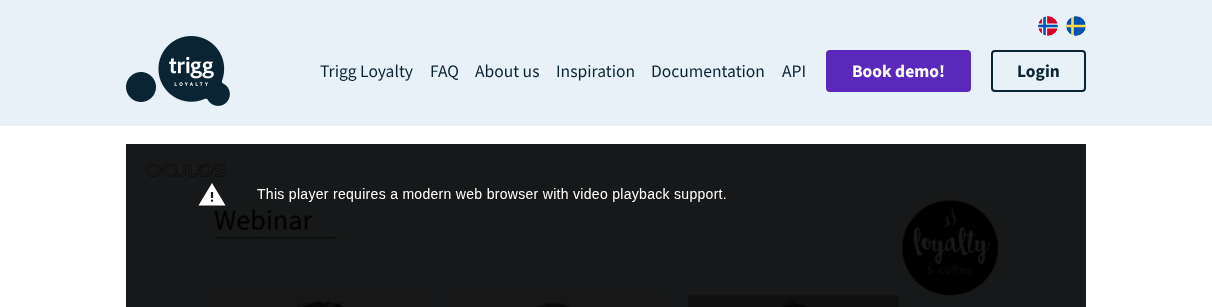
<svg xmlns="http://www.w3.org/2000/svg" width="1212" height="307">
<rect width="100%" height="100%" fill="#fff"/>
<rect width="1212" height="126" fill="#e7f1f7"/>
<image x="1038" y="16" width="20" height="20" href="media/1.png"/>
<image x="1066" y="16" width="20" height="20" href="media/2.png"/>
<image x="126" y="36" width="104" height="70" href="media/3.png"/>
<text x="320" y="77" style="font-family:Source Sans Pro;font-size:17.5px;fill:#0a2433">Trigg Loyalty</text>
<text x="430" y="77" style="font-family:Source Sans Pro;font-size:17.5px;fill:#0a2433">FAQ</text>
<text x="475" y="77" style="font-family:Source Sans Pro;font-size:17.5px;fill:#0a2433">About us</text>
<text x="556" y="77" style="font-family:Source Sans Pro;font-size:17.5px;fill:#0a2433">Inspiration</text>
<text x="651" y="77" style="font-family:Source Sans Pro;font-size:17.5px;fill:#0a2433">Documentation</text>
<text x="782" y="77" style="font-family:Source Sans Pro;font-size:17.5px;fill:#0a2433">API</text>
<rect x="827" y="51" width="143" height="40" rx="3" fill="#5b28bc" stroke="#5b28bc" stroke-width="2"/>
<text x="852" y="77" style="font-family:Source Sans Pro;font-size:17.5px;font-weight:bold;fill:#fff">Book demo!</text>
<rect x="992" y="51" width="93" height="40" rx="3" fill="none" stroke="#0a2433" stroke-width="2"/>
<text x="1017" y="77" style="font-family:Source Sans Pro;font-size:17.5px;font-weight:bold;fill:#0a2433">Login</text>
<image x="126" y="144" width="960" height="163" href="media/4.png"/>
</svg>
